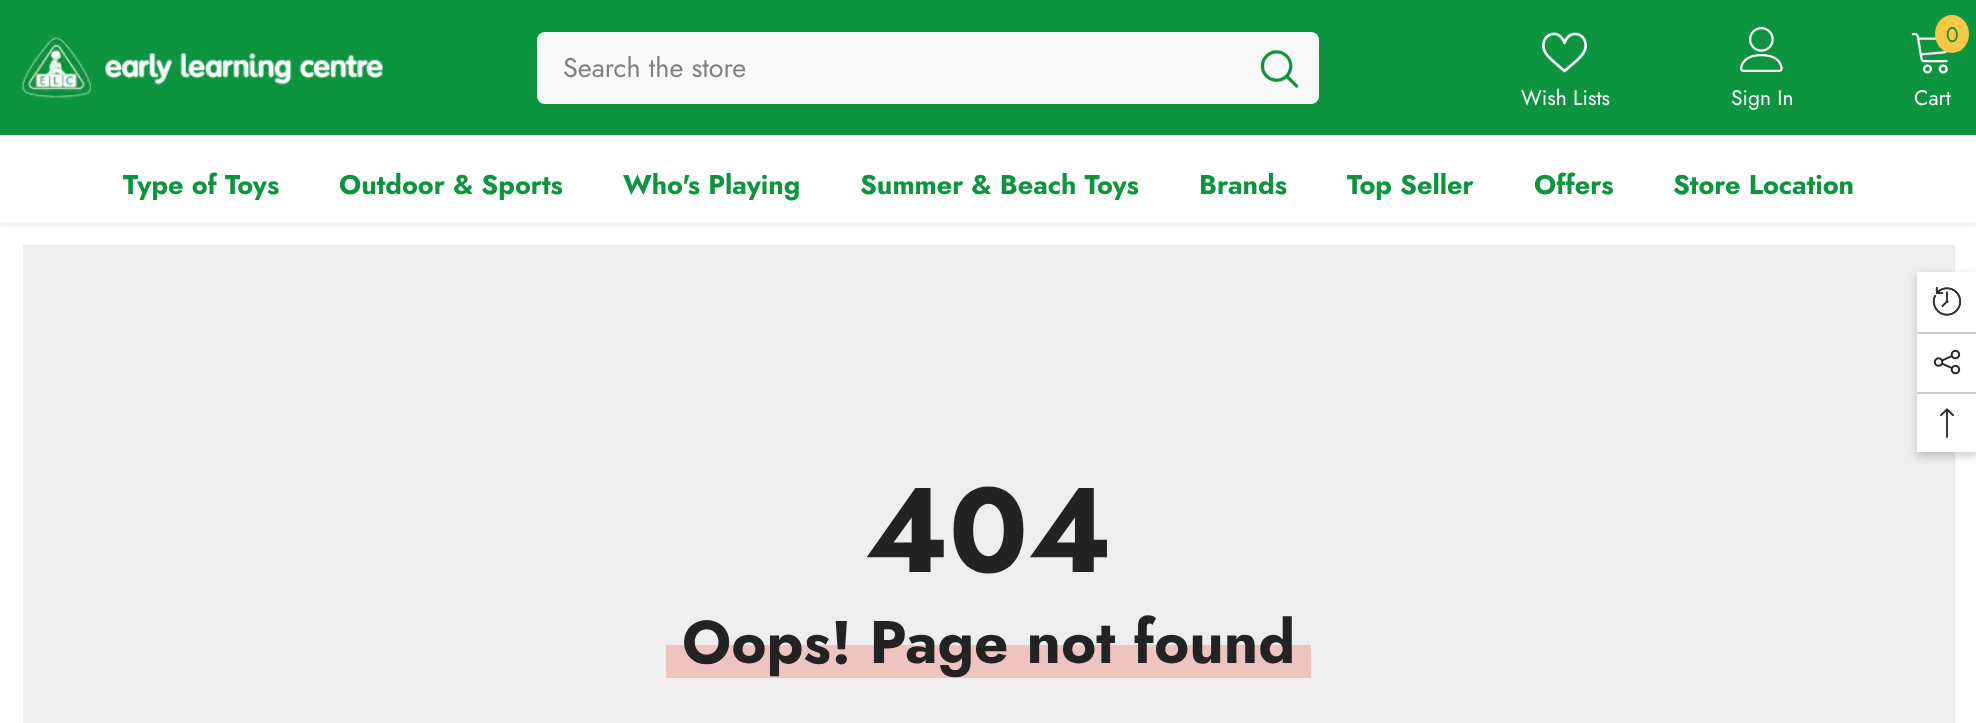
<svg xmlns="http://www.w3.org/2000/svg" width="1976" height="723">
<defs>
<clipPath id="clip1"><rect x="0" y="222" width="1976" height="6"/></clipPath>
</defs>
<rect width="100%" height="100%" fill="#fff"/>
<g clip-path="url(#clip1)">
<rect y="137" width="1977" height="87" fill="#0000001a" filter="blur(4.5px)"/>
</g>
<rect width="1976" height="135" fill="#0d943f"/>
<image x="22" y="37" width="361" height="61" href="media/1.png"/>
<rect x="537" y="32" width="782" height="72" rx="8" fill="#fafafa"/>
<text x="563" y="77" style="font-family:Jost;font-size:27px;fill:#808080">Search the store</text>
<image x="1260" y="50" width="39" height="38" href="media/2.png"/>
<image x="1911" y="33" width="37" height="41" href="media/3.png"/>
<ellipse cx="1952" cy="34" rx="17" ry="19" fill="#f7c947"/>
<text x="1946" y="42" style="font-family:Jost;font-size:21px;fill:#0d943f">0</text>
<text x="1914" y="105" style="font-family:Jost;font-size:21px;fill:#fff">Cart</text>
<image x="1542" y="32" width="45" height="41" href="media/4.png"/>
<text x="1521" y="105" style="font-family:Jost;font-size:21px;fill:#fff">Wish Lists</text>
<image x="1740" y="27" width="43" height="45" href="media/5.png"/>
<text x="1731" y="105" style="font-family:Jost;font-size:21px;fill:#fff">Sign In</text>
<text x="123" y="194" style="font-family:Jost;font-size:27px;font-weight:bold;fill:#0d943f">Type of Toys</text>
<text x="339" y="194" style="font-family:Jost;font-size:27px;font-weight:bold;fill:#0d943f">Outdoor &amp; Sports</text>
<text x="623" y="194" style="font-family:Jost;font-size:27px;font-weight:bold;fill:#0d943f">Who's Playing</text>
<text x="860" y="194" style="font-family:Jost;font-size:27px;font-weight:bold;fill:#0d943f">Summer &amp; Beach Toys</text>
<text x="1199" y="194" style="font-family:Jost;font-size:27px;font-weight:bold;fill:#0d943f">Brands</text>
<text x="1347" y="194" style="font-family:Jost;font-size:27px;font-weight:bold;fill:#0d943f">Top Seller</text>
<text x="1534" y="194" style="font-family:Jost;font-size:27px;font-weight:bold;fill:#0d943f">Offers</text>
<text x="1673" y="194" style="font-family:Jost;font-size:27px;font-weight:bold;fill:#0d943f">Store Location</text>
<rect x="23" y="245" width="1932" height="478" fill="#eee"/>
<text x="865" y="572" style="font-family:Jost;font-size:120px;font-weight:bold;fill:#232323">404</text>
<rect x="666" y="645" width="645" height="33" fill="#efc3c0"/>
<text x="682" y="663" style="font-family:Jost;font-size:60px;font-weight:bold;fill:#232323">Oops! Page not found</text>
<rect x="1917" y="276" width="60" height="180" fill="#00000033" filter="blur(5px)"/>
<rect x="1917" y="272" width="59" height="180" fill="#fff"/>
<image x="1932" y="287" width="30" height="29" href="media/6.png"/>
<rect x="1917" y="332" width="59" height="2" fill="#ccc"/>
<image x="1933" y="349" width="28" height="26" href="media/7.png"/>
<rect x="1917" y="392" width="59" height="2" fill="#ccc"/>
<image x="1940" y="408" width="14" height="30" href="media/8.png"/>
</svg>
